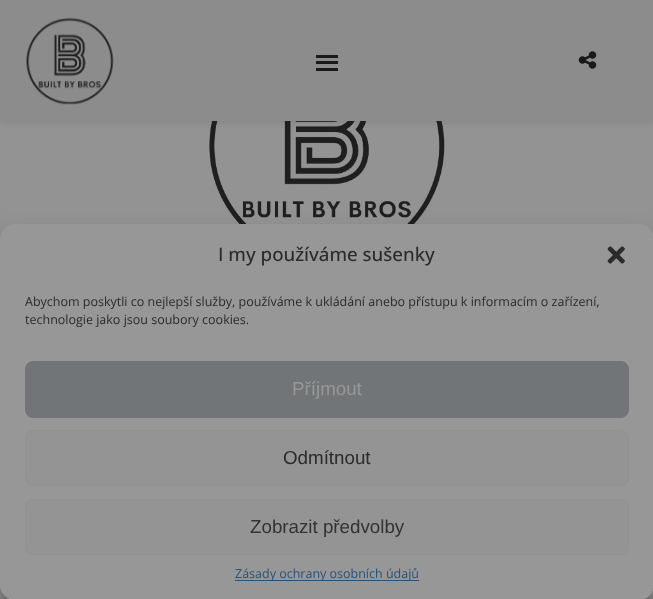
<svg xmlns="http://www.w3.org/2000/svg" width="653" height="599">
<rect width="100%" height="100%" fill="#939393"/>
<image x="209" y="121" width="236" height="103" href="media/3.png"/>
<rect y="1" width="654" height="122" fill="#1a1a1a1a" filter="blur(3px)"/>
<rect width="653" height="121" fill="#8c8c8c"/>
<image x="26" y="17" width="88" height="88" href="media/1.png"/>
<rect x="316" y="55" width="22" height="3" fill="#1a1a1a"/>
<rect x="316" y="61" width="22" height="3" fill="#1a1a1a"/>
<rect x="316" y="68" width="22" height="3" fill="#1a1a1a"/>
<image x="578" y="51" width="19" height="18" href="media/2.png"/>
<rect y="231" width="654" height="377" rx="15" fill="#1a1a1a3b" filter="blur(4px)"/>
<rect y="236" width="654" height="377" rx="15" fill="#1a1a1a30" filter="blur(12.5px)"/>
<rect y="224" width="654" height="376" rx="15" fill="#979797"/>
<text x="218" y="261" style="font-family:Open Sans;font-size:18.75px;font-weight:500;fill:#2b2b2b">I my používáme sušenky</text>
<image x="607" y="246" width="18" height="18" href="media/4.png"/>
<text x="25" y="306" style="font-family:Open Sans;font-size:12.5px;fill:#2b2b2b">Abychom poskytli co nejlepší služby, používáme k ukládání anebo přístupu k informacím o zařízení,</text>
<text x="25" y="324" style="font-family:Open Sans;font-size:12.5px;fill:#2b2b2b">technologie jako jsou soubory cookies.</text>
<rect x="25.5" y="361.5" width="603" height="56" rx="7.5" fill="#717578" stroke="#717578"/>
<text x="292" y="395" style="font-family:Liberation Sans;font-size:18.75px;fill:#979797">Příjmout</text>
<rect x="25.5" y="430.5" width="603" height="55" rx="7.5" fill="#949494" stroke="#919191"/>
<text x="283" y="464" style="font-family:Liberation Sans;font-size:18.75px;fill:#2b2b2b">Odmítnout</text>
<rect x="25.5" y="499.5" width="603" height="55" rx="7.5" fill="#949494" stroke="#919191"/>
<text x="250" y="533" style="font-family:Liberation Sans;font-size:18.75px;fill:#333">Zobrazit předvolby</text>
<rect x="235" y="580" width="184" height="1" fill="#295277"/>
<text x="235" y="578" style="font-family:Open Sans;font-size:12.5px;fill:#295277">Zásady ochrany osobních údajů</text>
</svg>
